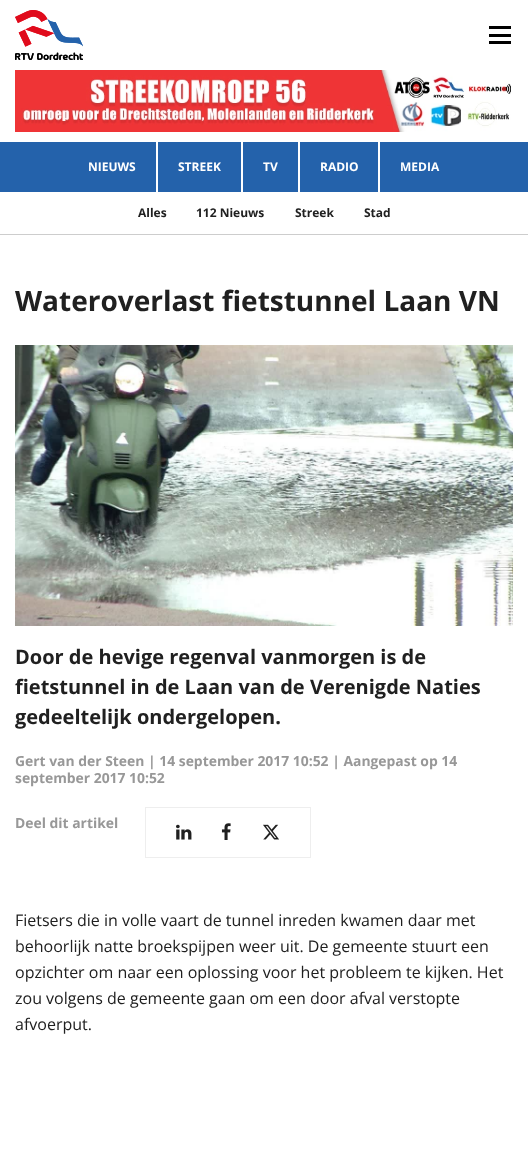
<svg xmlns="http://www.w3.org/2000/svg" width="528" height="1152">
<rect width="100%" height="100%" fill="#fff"/>
<image x="15" y="10" width="68" height="50" href="media/1.png"/>
<rect x="489" y="26" width="22" height="3" fill="#000"/>
<rect x="489" y="34" width="22" height="3" fill="#000"/>
<rect x="489" y="41" width="22" height="3" fill="#000"/>
<image x="15" y="70" width="496" height="62" href="media/2.png"/>
<rect y="142" width="528" height="50" fill="#2462ab"/>
<rect x="156" y="142" width="2" height="50" fill="#fff"/>
<text x="88" y="171" style="font-family:Open Sans;font-size:12px;font-weight:bold;fill:#fff">NIEUWS</text>
<rect x="241" y="142" width="2" height="50" fill="#fff"/>
<text x="178" y="171" style="font-family:Open Sans;font-size:12px;font-weight:bold;fill:#fff">STREEK</text>
<rect x="298" y="142" width="2" height="50" fill="#fff"/>
<text x="263" y="171" style="font-family:Open Sans;font-size:12px;font-weight:bold;fill:#fff">TV</text>
<rect x="378" y="142" width="2" height="50" fill="#fff"/>
<text x="320" y="171" style="font-family:Open Sans;font-size:12px;font-weight:bold;fill:#fff">RADIO</text>
<text x="400" y="171" style="font-family:Open Sans;font-size:12px;font-weight:bold;fill:#fff">MEDIA</text>
<rect y="234" width="528" height="1" fill="#cdcdcd"/>
<text x="138" y="217" style="font-family:Open Sans;font-size:12px;font-weight:bold;fill:#202020">Alles</text>
<text x="196" y="217" style="font-family:Open Sans;font-size:12px;font-weight:bold;fill:#202020">112 Nieuws</text>
<text x="295" y="217" style="font-family:Open Sans;font-size:12px;font-weight:bold;fill:#202020">Streek</text>
<text x="364" y="217" style="font-family:Open Sans;font-size:12px;font-weight:bold;fill:#202020">Stad</text>
<text x="15" y="311" style="font-family:Open Sans;font-size:28px;font-weight:bold;fill:#202020">Wateroverlast fietstunnel Laan VN</text>
<image x="15" y="345" width="498" height="281" href="media/3.png"/>
<text x="15" y="664" style="font-family:Open Sans;font-size:20px;font-weight:bold;fill:#202020">Door de hevige regenval vanmorgen is de</text>
<text x="15" y="694" style="font-family:Open Sans;font-size:20px;font-weight:bold;fill:#202020">fietstunnel in de Laan van de Verenigde Naties</text>
<text x="15" y="724" style="font-family:Open Sans;font-size:20px;font-weight:bold;fill:#202020">gedeeltelijk ondergelopen.</text>
<text x="15" y="766" style="font-family:Open Sans;font-size:13.9px;font-weight:bold;fill:#989898">Gert van der Steen | 14 september 2017 10:52 | Aangepast op 14</text>
<text x="15" y="783" style="font-family:Open Sans;font-size:13.9px;font-weight:bold;fill:#989898">september 2017 10:52</text>
<text x="15" y="828" style="font-family:Open Sans;font-size:13.9px;font-weight:bold;fill:#989898">Deel dit artikel</text>
<rect x="145.5" y="807.5" width="165" height="50" fill="none" stroke="#eee"/>
<image x="176" y="824" width="16" height="16" href="media/4.png"/>
<image x="221" y="823" width="10" height="17" href="media/5.png"/>
<image x="263" y="824" width="16" height="16" href="media/6.png"/>
<text x="15" y="926" style="font-family:Open Sans;font-size:16px;fill:#202020">Fietsers die in volle vaart de tunnel inreden kwamen daar met</text>
<text x="15" y="952" style="font-family:Open Sans;font-size:16px;fill:#202020">behoorlijk natte broekspijpen weer uit. De gemeente stuurt een</text>
<text x="15" y="978" style="font-family:Open Sans;font-size:16px;fill:#202020">opzichter om naar een oplossing voor het probleem te kijken. Het</text>
<text x="15" y="1004" style="font-family:Open Sans;font-size:16px;fill:#202020">zou volgens de gemeente gaan om een door afval verstopte</text>
<text x="15" y="1030" style="font-family:Open Sans;font-size:16px;fill:#202020">afvoerput.</text>
</svg>
